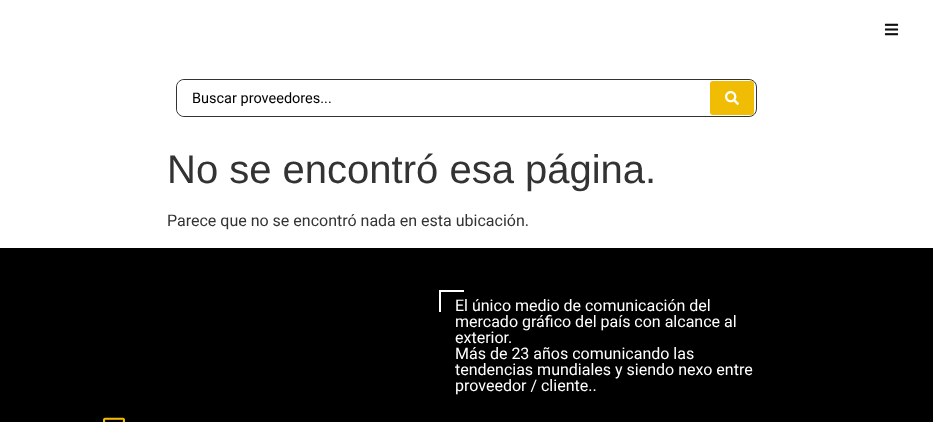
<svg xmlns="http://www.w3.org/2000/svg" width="933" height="422">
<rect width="100%" height="100%" fill="#fff"/>
<image x="884" y="23" width="15" height="13" href="media/1.png"/>
<rect x="176.5" y="79.5" width="580" height="37" rx="7.5" fill="none" stroke="#333"/>
<rect x="177" y="80" width="523" height="36" rx="8" fill="#fff"/>
<text x="192" y="103" style="font-family:Roboto;font-size:14.5px;fill:#000">Buscar proveedores...</text>
<rect x="710" y="81" width="44" height="34" rx="3" fill="#f0bc04"/>
<image x="725" y="91" width="14" height="14" href="media/2.png"/>
<text x="167" y="183" style="font-family:Liberation Sans;font-size:40px;fill:#333">No se encontró esa página.</text>
<text x="167" y="226" style="font-family:Roboto;font-size:16px;fill:#333">Parece que no se encontró nada en esta ubicación.</text>
<rect y="248" width="933" height="174" fill="#000"/>
<rect x="439" y="290" width="25" height="2" fill="#fff"/>
<rect x="439" y="290" width="2" height="22" fill="#fff"/>
<text x="455" y="311" style="font-family:Roboto;font-size:16px;fill:#fff">El único medio de comunicación del</text>
<text x="455" y="327" style="font-family:Roboto;font-size:16px;fill:#fff">mercado gráfico del país con alcance al</text>
<text x="455" y="343" style="font-family:Roboto;font-size:16px;fill:#fff">exterior.</text>
<text x="455" y="359" style="font-family:Roboto;font-size:16px;fill:#fff">Más de 23 años comunicando las</text>
<text x="455" y="375" style="font-family:Roboto;font-size:16px;fill:#fff">tendencias mundiales y siendo nexo entre</text>
<text x="455" y="391" style="font-family:Roboto;font-size:16px;fill:#fff">proveedor / cliente..</text>
<image x="103" y="417" width="22" height="5" href="media/3.png"/>
</svg>
